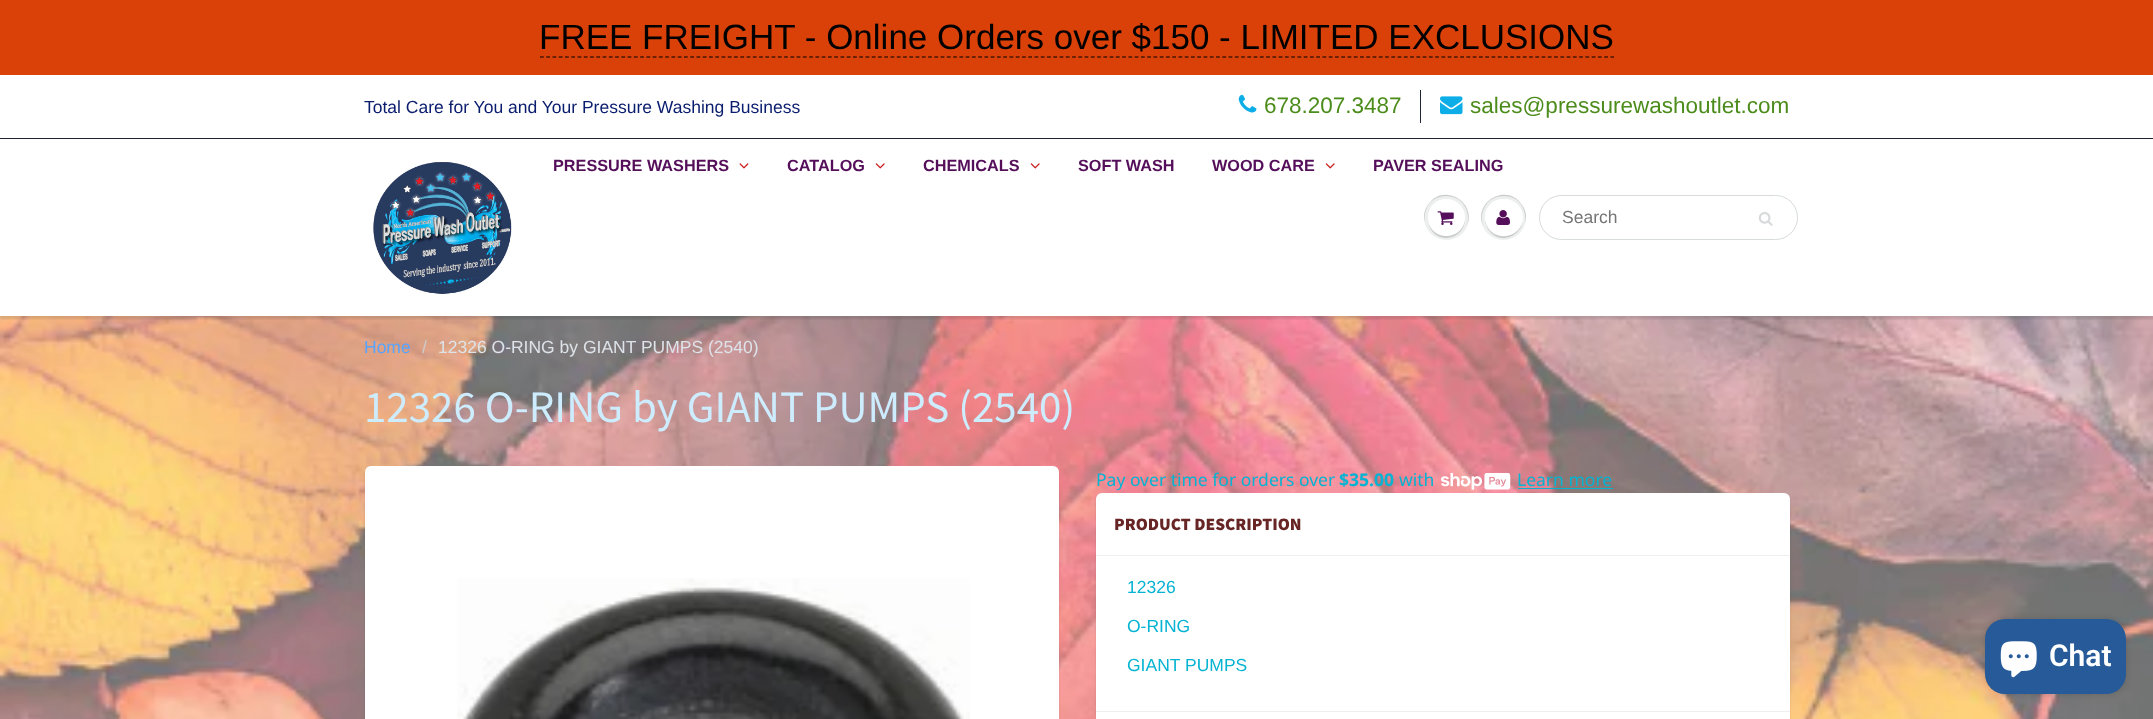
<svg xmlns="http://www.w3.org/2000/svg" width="2153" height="719">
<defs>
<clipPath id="clip1"><rect x="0" y="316" width="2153" height="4"/></clipPath>
</defs>
<rect width="100%" height="100%" fill="#fff"/>
<rect width="2153" height="75" fill="#d94108"/>
<text x="539" y="49" style="font-family:Liberation Sans;font-size:35px;fill:#000">FREE FREIGHT - Online Orders over $150 - LIMITED EXCLUSIONS</text>
<path d="M540 57h1074" fill="none" stroke="#000" stroke-width="1.2" stroke-dasharray="3.75 2.51"/>
<text x="364" y="113" style="font-family:Liberation Sans;font-size:17.5px;fill:#091c6d">Total Care for You and Your Pressure Washing Business</text>
<image x="1238" y="94" width="19" height="19" href="media/1.png"/>
<text x="1264" y="113" style="font-family:Liberation Sans;font-size:22.5px;fill:#4c8c1b">678.207.3487</text>
<rect x="1420" y="90" width="1" height="33" fill="#1d2433"/>
<image x="1440" y="96" width="23" height="19" href="media/2.png"/>
<text x="1470" y="113" style="font-family:Liberation Sans;font-size:22.5px;fill:#4c8c1b">sales@pressurewashoutlet.com</text>
<image x="0" y="316" width="2153" height="403" href="media/9.png"/>
<g clip-path="url(#clip1)">
<rect y="140" width="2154" height="179" fill="#0b191c1f" filter="blur(1px)"/>
</g>
<rect y="138" width="2153" height="1" fill="#1d2433"/>
<image x="373" y="162" width="139" height="132" href="media/3.png"/>
<text x="553" y="171" style="font-family:Liberation Sans;font-size:16.25px;font-weight:bold;fill:#550f5a">PRESSURE WASHERS</text>
<image x="739" y="163" width="10" height="6" href="media/4.png"/>
<text x="787" y="171" style="font-family:Liberation Sans;font-size:16.25px;font-weight:bold;fill:#550f5a">CATALOG</text>
<image x="875" y="163" width="10" height="6" href="media/5.png"/>
<text x="923" y="171" style="font-family:Liberation Sans;font-size:16.25px;font-weight:bold;fill:#550f5a">CHEMICALS</text>
<image x="1030" y="163" width="10" height="6" href="media/5.png"/>
<text x="1078" y="171" style="font-family:Liberation Sans;font-size:16.25px;font-weight:bold;fill:#550f5a">SOFT WASH</text>
<text x="1212" y="171" style="font-family:Liberation Sans;font-size:16.25px;font-weight:bold;fill:#550f5a">WOOD CARE</text>
<image x="1325" y="163" width="10" height="6" href="media/5.png"/>
<text x="1373" y="171" style="font-family:Liberation Sans;font-size:16.25px;font-weight:bold;fill:#550f5a">PAVER SEALING</text>
<circle cx="1446.5" cy="217.5" r="22.5" fill="#edefef"/>
<path d="M1446 196c18 0 25 17 21 30c10-24-24-44-39-21c-4 5-5 12-3 18c-2-13 5-27 21-27z" fill="#c9cbcb"/>
<path d="M1428.5 223c4 22 37 19 36.5-5c-.5 21-30.5 25-36.5 5z" fill="#c9cbcb"/>
<circle cx="1446.5" cy="217.5" r="18.5" fill="#fff"/>
<path d="M1446 200c13.5 0 19.5 11 18.5 21c4-19.5-22-30.5-33.5-14c-2 3.5-3 7.5-3 11c.5-9 6.5-18 18-18z" fill="#fff"/>
<image x="1437" y="211" width="17" height="14" href="media/6.png"/>
<circle cx="1503.5" cy="217.5" r="22.5" fill="#edefef"/>
<path d="M1504 196c16 0 23 14 21 27c2-6 1-13-3-18c-15-23-49-3-39 21c-4-13 3-30 21-30z" fill="#c9cbcb"/>
<path d="M1485 218c0 5.5 2 10.5 5.5 14.5c14.5 14.5 38.5-2 31-20.5c5.5 18-17 32.5-31 19c-3-3.5-5.5-8-5.5-13z" fill="#c9cbcb"/>
<rect x="1485" y="199" width="38" height="37" rx="18.5" fill="#fff"/>
<path d="M1504 200c15 0 21 15 17 26c11-20-20-38-33-19c-3 4-4 9-3 14c-1-10 6-21 19-21z" fill="#fff"/>
<image x="1496" y="210" width="14" height="15" href="media/7.png"/>
<rect x="1539.5" y="195.5" width="258" height="44" rx="22" fill="none" stroke="#d7dbdb"/>
<text x="1562" y="223" style="font-family:Liberation Sans;font-size:17.5px;fill:#757575">Search</text>
<image x="1758" y="212" width="15" height="14" href="media/8.png"/>
<text x="364" y="353" style="font-family:Liberation Sans;font-size:17.5px;fill:#58a4ff">Home</text>
<text x="422" y="353" style="font-family:Liberation Sans;font-size:17.5px;fill:#ccc">/</text>
<text x="438" y="353" style="font-family:Liberation Sans;font-size:17.5px;fill:#dde3e9">12326 O-RING by GIANT PUMPS (2540)</text>
<text x="364" y="422" style="font-family:Source Sans Pro;font-size:45px;fill:#cdedff">12326 O-RING by GIANT PUMPS (2540)</text>
<rect x="365" y="469" width="694" height="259" rx="6" fill="#0b191c1a" filter="blur(1px)"/>
<rect x="365" y="466" width="694" height="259" rx="6" fill="#fff"/>
<image x="457" y="578" width="513" height="141" href="media/10.png"/>
<text x="1096" y="486" style="font-family:Noto Sans;font-size:17.5px;fill:#05b3d2">Pay over time for orders over</text>
<text x="1339" y="486" style="font-family:Noto Sans;font-size:17.5px;font-weight:bold;fill:#05b3d2">$35.00</text>
<text x="1399" y="486" style="font-family:Noto Sans;font-size:17.5px;fill:#05b3d2">with</text>
<image x="1441" y="473" width="70" height="17" href="media/11.png"/>
<text x="1517" y="486" style="font-family:Noto Sans;font-size:17.5px;fill:#05b3d2">Learn more</text>
<rect x="1518" y="488" width="95" height="1" fill="#05b3d2"/>
<rect x="1096" y="495" width="694" height="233" rx="6" fill="#0b191c1a" filter="blur(1px)"/>
<rect x="1096" y="493" width="694" height="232" rx="6" fill="#fff"/>
<rect x="1096" y="555" width="694" height="1" fill="#efefef"/>
<text x="1114" y="530" style="font-family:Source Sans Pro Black;font-size:17.5px;font-weight:900;fill:#682525">PRODUCT DESCRIPTION</text>
<text x="1127" y="593" style="font-family:Liberation Sans;font-size:17.5px;fill:#05b3d2">12326</text>
<text x="1127" y="632" style="font-family:Liberation Sans;font-size:17.5px;fill:#05b3d2">O-RING</text>
<text x="1127" y="671" style="font-family:Liberation Sans;font-size:17.5px;fill:#05b3d2">GIANT PUMPS</text>
<rect x="1096" y="711" width="694" height="1" fill="#efefef"/>
<rect x="1985" y="619" width="141" height="75" rx="20" fill="#00000026" filter="blur(3px)"/>
<rect x="1985" y="619" width="141" height="75" rx="20" fill="#265a98"/>
<image x="2000" y="641" width="37" height="37" href="media/12.png"/>
<text x="2049" y="666" style="font-family:Roboto;font-size:30px;font-weight:600;fill:#fff">Chat</text>
</svg>
